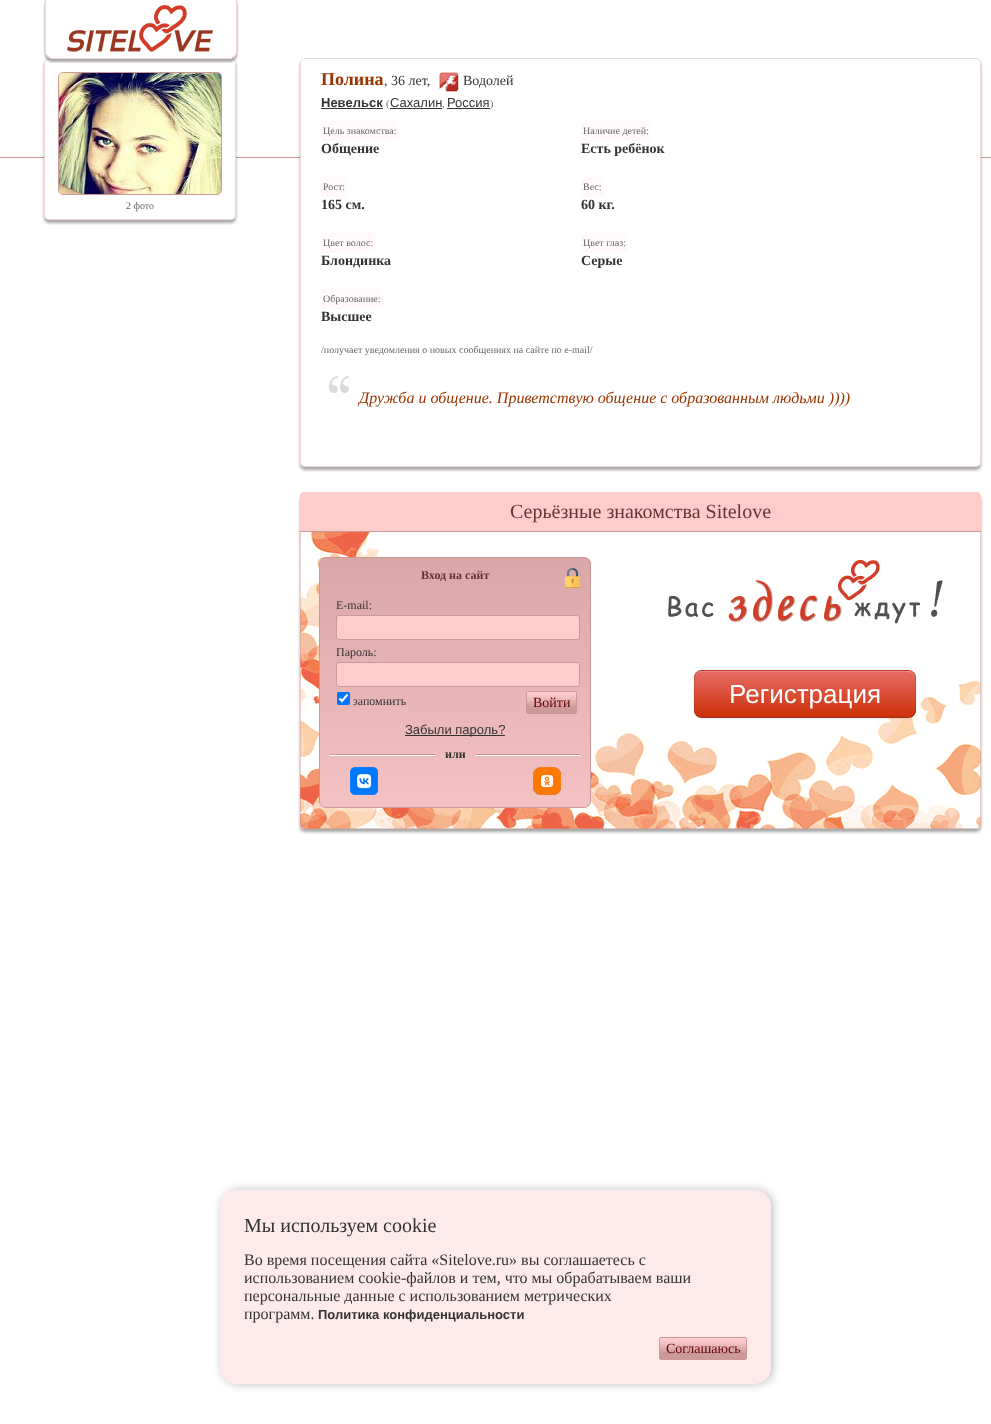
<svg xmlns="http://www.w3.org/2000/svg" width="991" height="1424">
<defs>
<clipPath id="clip1"><path d="M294 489h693v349h-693zm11 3h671c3 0 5 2 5 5v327c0 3-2 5-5 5h-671c-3 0-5-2-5-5v-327c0-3 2-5 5-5z" clip-rule="evenodd"/></clipPath>
<clipPath id="clip2"><rect x="319" y="557" width="272" height="251" rx="7"/></clipPath>
<linearGradient id="g1" gradientUnits="userSpaceOnUse" x1="455" y1="558" x2="455" y2="807"><stop offset="0" stop-color="#daa7a7"/><stop offset="1" stop-color="#f5c2c3"/></linearGradient>
<clipPath id="clip3"><rect x="694" y="670" width="222" height="48" rx="8"/></clipPath>
<linearGradient id="g2" gradientUnits="userSpaceOnUse" x1="805" y1="671" x2="805" y2="717"><stop offset="0" stop-color="#e86c66"/><stop offset="1" stop-color="#cc3008"/></linearGradient>
</defs>
<rect width="100%" height="100%" fill="#fff"/>
<rect y="157" width="991" height="1" fill="#c99"/>
<rect x="44" y="61" width="192" height="162" rx="5" fill="#00000059" filter="blur(1.5px)"/>
<rect x="44" y="58" width="192" height="162" rx="5" fill="#fff"/>
<rect x="44.5" y="58.5" width="191" height="161" rx="4.5" fill="none" stroke="#cc999959"/>
<image x="43" y="0" width="196" height="63" href="media/1.png"/>
<image x="59" y="73" width="162" height="121" href="media/2.png"/>
<rect x="58.5" y="72.5" width="163" height="122" rx="4.5" fill="none" stroke="#c99"/>
<image x="59" y="73" width="162" height="121" href="media/3.png"/>
<text x="126" y="209" style="font-family:Liberation Serif;font-size:10px;fill:#666">2 фото</text>
<rect x="300" y="61" width="681" height="409" rx="5" fill="#00000059" filter="blur(1.5px)"/>
<rect x="300" y="58" width="681" height="409" rx="5" fill="#fff"/>
<rect x="300.5" y="58.5" width="680" height="408" rx="4.5" fill="none" stroke="#cc999959"/>
<text x="321" y="85" style="font-family:Liberation Serif;font-size:18px;font-weight:bold;fill:#930">Полина</text>
<text x="384" y="85" style="font-family:Liberation Serif;font-size:14px;fill:#333">, 36 лет,</text>
<image x="438" y="72" width="21" height="22" href="media/4.png"/>
<text x="463" y="85" style="font-family:Liberation Serif;font-size:14px;fill:#333">Водолей</text>
<text x="321" y="107" style="font-family:Liberation Sans;font-size:13px;font-weight:bold;fill:#333">Невельск</text>
<rect x="321" y="108" width="62" height="1" fill="#333"/>
<text x="386" y="107" style="font-family:Liberation Serif;font-size:10px;fill:#666">(</text>
<text x="390" y="107" style="font-family:Liberation Sans;font-size:13px;fill:#333">Сахалин</text>
<text x="442" y="107" style="font-family:Liberation Serif;font-size:10px;fill:#666">,</text>
<rect x="390" y="108" width="52" height="1" fill="#333"/>
<rect x="447" y="108" width="43" height="1" fill="#333"/>
<text x="447" y="107" style="font-family:Liberation Sans;font-size:13px;fill:#333">Россия</text>
<text x="490" y="107" style="font-family:Liberation Serif;font-size:10px;fill:#666">)</text>
<rect x="321" y="121" width="78" height="20" rx="3" fill="#fff9f9"/>
<text x="323" y="134" style="font-family:Liberation Serif;font-size:10px;fill:#666">Цель знакомства:</text>
<text x="321" y="153" style="font-family:Liberation Serif;font-size:14px;font-weight:bold;fill:#333">Общение</text>
<rect x="581" y="121" width="70" height="20" rx="3" fill="#fff9f9"/>
<text x="583" y="134" style="font-family:Liberation Serif;font-size:10px;fill:#666">Наличие детей:</text>
<text x="581" y="153" style="font-family:Liberation Serif;font-size:14px;font-weight:bold;fill:#333">Есть ребёнок</text>
<rect x="321" y="177" width="26" height="20" rx="3" fill="#fff9f9"/>
<text x="323" y="190" style="font-family:Liberation Serif;font-size:10px;fill:#666">Рост:</text>
<text x="321" y="209" style="font-family:Liberation Serif;font-size:14px;font-weight:bold;fill:#333">165 см.</text>
<rect x="581" y="177" width="23" height="20" rx="3" fill="#fff9f9"/>
<text x="583" y="190" style="font-family:Liberation Serif;font-size:10px;fill:#666">Вес:</text>
<text x="581" y="209" style="font-family:Liberation Serif;font-size:14px;font-weight:bold;fill:#333">60 кг.</text>
<rect x="321" y="233" width="54" height="20" rx="3" fill="#fff9f9"/>
<text x="323" y="246" style="font-family:Liberation Serif;font-size:10px;fill:#666">Цвет волос:</text>
<text x="321" y="265" style="font-family:Liberation Serif;font-size:14px;font-weight:bold;fill:#333">Блондинка</text>
<rect x="581" y="233" width="47" height="20" rx="3" fill="#fff9f9"/>
<text x="583" y="246" style="font-family:Liberation Serif;font-size:10px;fill:#666">Цвет глаз:</text>
<text x="581" y="265" style="font-family:Liberation Serif;font-size:14px;font-weight:bold;fill:#333">Серые</text>
<rect x="321" y="289" width="62" height="20" rx="3" fill="#fff9f9"/>
<text x="323" y="302" style="font-family:Liberation Serif;font-size:10px;fill:#666">Образование:</text>
<text x="321" y="321" style="font-family:Liberation Serif;font-size:14px;font-weight:bold;fill:#333">Высшее</text>
<text x="321" y="353" style="font-family:Liberation Serif;font-size:10px;fill:#666">/получает уведомления о новых сообщениях на сайте по e-mail/</text>
<image x="329" y="376" width="20" height="17" href="media/5.png"/>
<text x="359" y="403" style="font-family:Liberation Serif;font-size:16px;font-style:italic;fill:#930">Дружба и общение. Приветствую общение с образованным людьми ))))</text>
<rect x="222" y="1190" width="551" height="194" rx="16" fill="#00000040" filter="blur(5px)"/>
<rect x="220" y="1190" width="551" height="194" rx="16" fill="#fdeaea"/>
<text x="244" y="1232" style="font-family:Liberation Serif;font-size:20px;fill:#333">Мы используем сookie</text>
<text x="244" y="1265" style="font-family:Liberation Serif;font-size:16px;fill:#333">Во время посещения сайта «Sitelove.ru» вы соглашаетесь с</text>
<text x="244" y="1283" style="font-family:Liberation Serif;font-size:16px;fill:#333">использованием cookie-файлов и тем, что мы обрабатываем ваши</text>
<text x="244" y="1301" style="font-family:Liberation Serif;font-size:16px;fill:#333">персональные данные с использованием метрических</text>
<text x="244" y="1319" style="font-family:Liberation Serif;font-size:16px;fill:#333">программ.</text>
<text x="318" y="1319" style="font-family:Liberation Sans;font-size:13px;font-weight:bold;fill:#333">Политика конфиденциальности</text>
<image x="660" y="1337" width="86" height="15" href="media/6.png"/>
<rect x="660" y="1352" width="86" height="7" fill="#cd9a9a"/>
<text x="666" y="1353" style="font-family:Liberation Serif;font-size:14px;fill:#600">Соглашаюсь</text>
<rect x="746" y="1338" width="1" height="21" fill="#c99"/>
<rect x="659" y="1338" width="1" height="21" fill="#c99"/>
<rect x="660" y="1359" width="86" height="1" fill="#c99"/>
<image x="300" y="492" width="681" height="337" href="media/7.png"/>
<g clip-path="url(#clip1)">
<rect x="300" y="495" width="681" height="337" rx="5" fill="#00000059" filter="blur(1.5px)"/>
</g>
<rect x="300.5" y="492.5" width="680" height="336" rx="4.5" fill="none" stroke="#cc999980"/>
<path d="M305 492h671c3 0 5 2 5 5v35h-681v-35c0-3 2-5 5-5z" fill="#fcc"/>
<rect x="300" y="531" width="681" height="1" fill="#c99"/>
<text x="510" y="518" style="font-family:Liberation Serif;font-size:20px;fill:#633">Серьёзные знакомства Sitelove</text>
<g clip-path="url(#clip2)">
<rect x="319" y="558" width="272" height="249" fill="url(#g1)"/>
</g>
<rect x="319.5" y="557.5" width="271" height="250" rx="6.5" fill="none" stroke="#c99"/>
<text x="421" y="579" style="font-family:Liberation Serif;font-size:12px;font-weight:bold;fill:#633">Вход на сайт</text>
<image x="565" y="568" width="15" height="20" href="media/8.png"/>
<text x="336" y="609" style="font-family:Liberation Serif;font-size:12px;fill:#333">E-mail:</text>
<rect x="336.5" y="615.5" width="243" height="24" rx="2.5" fill="#fcc" stroke="#c99"/>
<text x="336" y="656" style="font-family:Liberation Serif;font-size:12px;fill:#333">Пароль:</text>
<rect x="336.5" y="662.5" width="243" height="24" rx="2.5" fill="#fcc" stroke="#c99"/>
<rect x="337" y="692" width="13" height="13" rx="2" fill="#0075ff"/>
<path d="M339.5 698.5l2.5 2.5l5.5-6.5" fill="none" stroke="#fff" stroke-width="2.1"/>
<text x="353" y="705" style="font-family:Liberation Serif;font-size:12px;fill:#333">запомнить</text>
<image x="527" y="691" width="49" height="15" href="media/9.png"/>
<rect x="527" y="706" width="49" height="7" fill="#cd9a9a"/>
<text x="533" y="707" style="font-family:Liberation Serif;font-size:14px;fill:#600">Войти</text>
<rect x="576" y="692" width="1" height="21" fill="#c99"/>
<rect x="526" y="692" width="1" height="21" fill="#c99"/>
<rect x="527" y="713" width="49" height="1" fill="#c99"/>
<rect x="405" y="735" width="100" height="1" fill="#333"/>
<text x="405" y="734" style="font-family:Liberation Sans;font-size:13px;fill:#333">Забыли пароль?</text>
<rect x="330" y="754" width="105" height="1" fill="#c99"/>
<rect x="330" y="755" width="105" height="1" fill="#fff"/>
<text x="445" y="758" style="font-family:Liberation Serif;font-size:12px;font-weight:bold;fill:#333">или</text>
<rect x="475" y="754" width="105" height="1" fill="#c99"/>
<rect x="475" y="755" width="105" height="1" fill="#fff"/>
<image x="350" y="767" width="28" height="28" href="media/10.png"/>
<image x="533" y="767" width="28" height="28" href="media/11.png"/>
<image x="668" y="560" width="275" height="64" href="media/12.png"/>
<rect x="694" y="671" width="222" height="48" rx="8" fill="#0000000d" filter="blur(1px)"/>
<rect x="694" y="670" width="222" height="48" rx="8" fill="#d13d27"/>
<g clip-path="url(#clip3)">
<rect x="694" y="671" width="222" height="46" fill="url(#g2)"/>
</g>
<path d="M702 672h206c4 0 7 3 7 7c0-4-2-7-6-8h-207c-5 0-7 4-7 8c0-4 3-7 7-7z" fill="#ffffff33"/>
<path d="M913.5 715.5c-1.5 1-3.5 2-5.5 2h-206c-2 0-4-1-5.5-2" fill="none" stroke="#00000040"/>
<path d="M696.5 715.5c-1-1.5-2-3.5-2-5.5v-32c0-2 1-4 2-5.5c1.5-1 3.5-2 5.5-2h206c2 0 4 1 5.5 2c1 1.5 2 3.5 2 5.5v32c0 2-1 4-2 5.5" fill="none" stroke="#0000001a"/>
<text x="729" y="703" style="font-family:Liberation Sans;font-size:26px;fill:#fff">Регистрация</text>
</svg>
